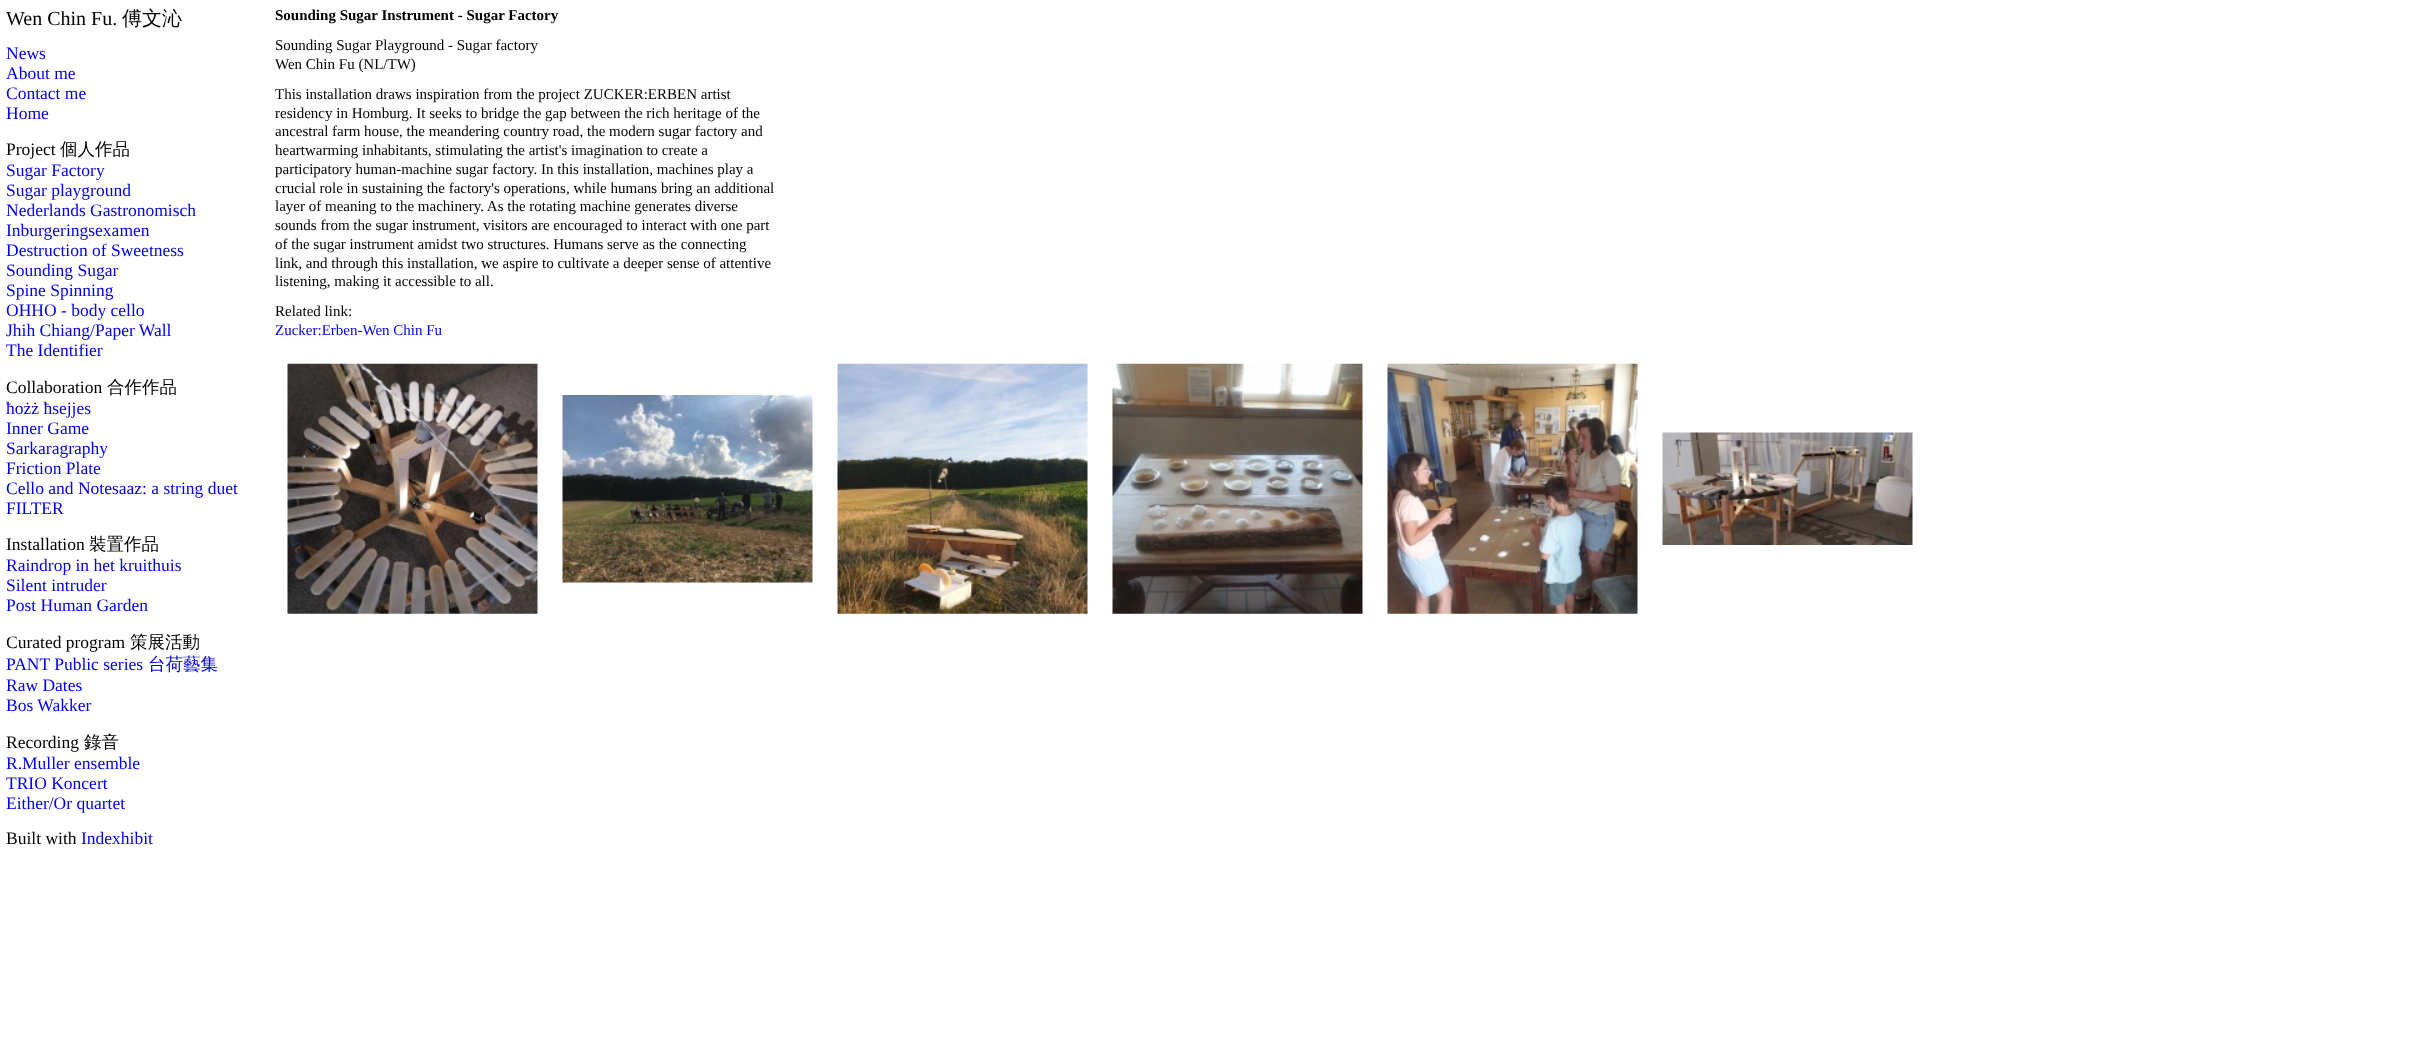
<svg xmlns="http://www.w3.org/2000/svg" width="2413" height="1042">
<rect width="100%" height="100%" fill="#fff"/>
<text x="6" y="25" style="font-family:Liberation Serif;font-size:20px;fill:#000">Wen Chin Fu.</text>
<text x="122" y="25" style="font-family:WenQuanYi Zen Hei;font-size:20px;font-weight:500;fill:#000">傅文沁</text>
<text x="6" y="59" style="font-family:Liberation Serif;font-size:17.5px;fill:#00e">News</text>
<text x="6" y="79" style="font-family:Liberation Serif;font-size:17.5px;fill:#00e">About me</text>
<text x="6" y="99" style="font-family:Liberation Serif;font-size:17.5px;fill:#00e">Contact me</text>
<text x="6" y="119" style="font-family:Liberation Serif;font-size:17.5px;fill:#00e">Home</text>
<text x="6" y="155" style="font-family:Liberation Serif;font-size:17.5px;fill:#000">Project</text>
<text x="60" y="155" style="font-family:WenQuanYi Zen Hei;font-size:17.5px;font-weight:500;fill:#000">個人作品</text>
<text x="6" y="176" style="font-family:Liberation Serif;font-size:17.5px;fill:#00e">Sugar Factory</text>
<text x="6" y="196" style="font-family:Liberation Serif;font-size:17.5px;fill:#00e">Sugar playground</text>
<text x="6" y="216" style="font-family:Liberation Serif;font-size:17.5px;fill:#00e">Nederlands Gastronomisch</text>
<text x="6" y="236" style="font-family:Liberation Serif;font-size:17.5px;fill:#00e">Inburgeringsexamen</text>
<text x="6" y="256" style="font-family:Liberation Serif;font-size:17.5px;fill:#00e">Destruction of Sweetness</text>
<text x="6" y="276" style="font-family:Liberation Serif;font-size:17.5px;fill:#00e">Sounding Sugar</text>
<text x="6" y="296" style="font-family:Liberation Serif;font-size:17.5px;fill:#00e">Spine Spinning</text>
<text x="6" y="316" style="font-family:Liberation Serif;font-size:17.5px;fill:#00e">OHHO - body cello</text>
<text x="6" y="336" style="font-family:Liberation Serif;font-size:17.5px;fill:#00e">Jhih Chiang/Paper Wall</text>
<text x="6" y="356" style="font-family:Liberation Serif;font-size:17.5px;fill:#00e">The Identifier</text>
<text x="6" y="393" style="font-family:Liberation Serif;font-size:17.5px;fill:#000">Collaboration</text>
<text x="107" y="393" style="font-family:WenQuanYi Zen Hei;font-size:17.5px;font-weight:500;fill:#000">合作作品</text>
<text x="6" y="414" style="font-family:Liberation Serif;font-size:17.5px;fill:#00e">ħożż ħsejjes</text>
<text x="6" y="434" style="font-family:Liberation Serif;font-size:17.5px;fill:#00e">Inner Game</text>
<text x="6" y="454" style="font-family:Liberation Serif;font-size:17.5px;fill:#00e">Sarkaragraphy</text>
<text x="6" y="474" style="font-family:Liberation Serif;font-size:17.5px;fill:#00e">Friction Plate</text>
<text x="6" y="494" style="font-family:Liberation Serif;font-size:17.5px;fill:#00e">Cello and Notesaaz: a string duet</text>
<text x="6" y="514" style="font-family:Liberation Serif;font-size:17.5px;fill:#00e">FILTER</text>
<text x="6" y="550" style="font-family:Liberation Serif;font-size:17.5px;fill:#000">Installation</text>
<text x="89" y="550" style="font-family:WenQuanYi Zen Hei;font-size:17.5px;font-weight:500;fill:#000">裝置作品</text>
<text x="6" y="571" style="font-family:Liberation Serif;font-size:17.5px;fill:#00e">Raindrop in het kruithuis</text>
<text x="6" y="591" style="font-family:Liberation Serif;font-size:17.5px;fill:#00e">Silent intruder</text>
<text x="6" y="611" style="font-family:Liberation Serif;font-size:17.5px;fill:#00e">Post Human Garden</text>
<text x="6" y="648" style="font-family:Liberation Serif;font-size:17.5px;fill:#000">Curated program</text>
<text x="130" y="648" style="font-family:WenQuanYi Zen Hei;font-size:17.5px;font-weight:500;fill:#000">策展活動</text>
<text x="6" y="670" style="font-family:Liberation Serif;font-size:17.5px;fill:#00e">PANT Public series</text>
<text x="148" y="670" style="font-family:WenQuanYi Zen Hei;font-size:17.5px;font-weight:500;fill:#00e">台荷藝集</text>
<text x="6" y="691" style="font-family:Liberation Serif;font-size:17.5px;fill:#00e">Raw Dates</text>
<text x="6" y="711" style="font-family:Liberation Serif;font-size:17.5px;fill:#00e">Bos Wakker</text>
<text x="6" y="748" style="font-family:Liberation Serif;font-size:17.5px;fill:#000">Recording</text>
<text x="84" y="748" style="font-family:WenQuanYi Zen Hei;font-size:17.5px;font-weight:500;fill:#000">錄音</text>
<text x="6" y="769" style="font-family:Liberation Serif;font-size:17.5px;fill:#00e">R.Muller ensemble</text>
<text x="6" y="789" style="font-family:Liberation Serif;font-size:17.5px;fill:#00e">TRIO Koncert</text>
<text x="6" y="809" style="font-family:Liberation Serif;font-size:17.5px;fill:#00e">Either/Or quartet</text>
<text x="6" y="844" style="font-family:Liberation Serif;font-size:17.5px;fill:#000">Built with</text>
<text x="81" y="844" style="font-family:Liberation Serif;font-size:17.5px;fill:#00e">Indexhibit</text>
<text x="275" y="20" style="font-family:Liberation Serif;font-size:15px;font-weight:bold;fill:#000">Sounding Sugar Instrument - Sugar Factory</text>
<text x="275" y="50" style="font-family:Liberation Serif;font-size:15px;fill:#000">Sounding Sugar Playground - Sugar factory</text>
<text x="275" y="69" style="font-family:Liberation Serif;font-size:15px;fill:#000">Wen Chin Fu (NL/TW)</text>
<text x="275" y="99" style="font-family:Liberation Serif;font-size:15px;fill:#000">This installation draws inspiration from the project ZUCKER:ERBEN artist</text>
<text x="275" y="118" style="font-family:Liberation Serif;font-size:15px;fill:#000">residency in Homburg. It seeks to bridge the gap between the rich heritage of the</text>
<text x="275" y="136" style="font-family:Liberation Serif;font-size:15px;fill:#000">ancestral farm house, the meandering country road, the modern sugar factory and</text>
<text x="275" y="155" style="font-family:Liberation Serif;font-size:15px;fill:#000">heartwarming inhabitants, stimulating the artist's imagination to create a</text>
<text x="275" y="174" style="font-family:Liberation Serif;font-size:15px;fill:#000">participatory human-machine sugar factory. In this installation, machines play a</text>
<text x="275" y="193" style="font-family:Liberation Serif;font-size:15px;fill:#000">crucial role in sustaining the factory's operations, while humans bring an additional</text>
<text x="275" y="211" style="font-family:Liberation Serif;font-size:15px;fill:#000">layer of meaning to the machinery. As the rotating machine generates diverse</text>
<text x="275" y="230" style="font-family:Liberation Serif;font-size:15px;fill:#000">sounds from the sugar instrument, visitors are encouraged to interact with one part</text>
<text x="275" y="249" style="font-family:Liberation Serif;font-size:15px;fill:#000">of the sugar instrument amidst two structures. Humans serve as the connecting</text>
<text x="275" y="268" style="font-family:Liberation Serif;font-size:15px;fill:#000">link, and through this installation, we aspire to cultivate a deeper sense of attentive</text>
<text x="275" y="286" style="font-family:Liberation Serif;font-size:15px;fill:#000">listening, making it accessible to all.</text>
<text x="275" y="316" style="font-family:Liberation Serif;font-size:15px;fill:#000">Related link:</text>
<text x="275" y="335" style="font-family:Liberation Serif;font-size:15px;fill:#00e">Zucker:Erben-Wen Chin Fu</text>
<image x="287" y="363" width="251" height="251" href="media/1.png"/>
<image x="562" y="395" width="251" height="188" href="media/2.png"/>
<image x="837" y="363" width="251" height="251" href="media/3.png"/>
<image x="1112" y="363" width="251" height="251" href="media/4.png"/>
<image x="1387" y="363" width="251" height="251" href="media/5.png"/>
<image x="1662" y="432" width="251" height="113" href="media/6.png"/>
</svg>
